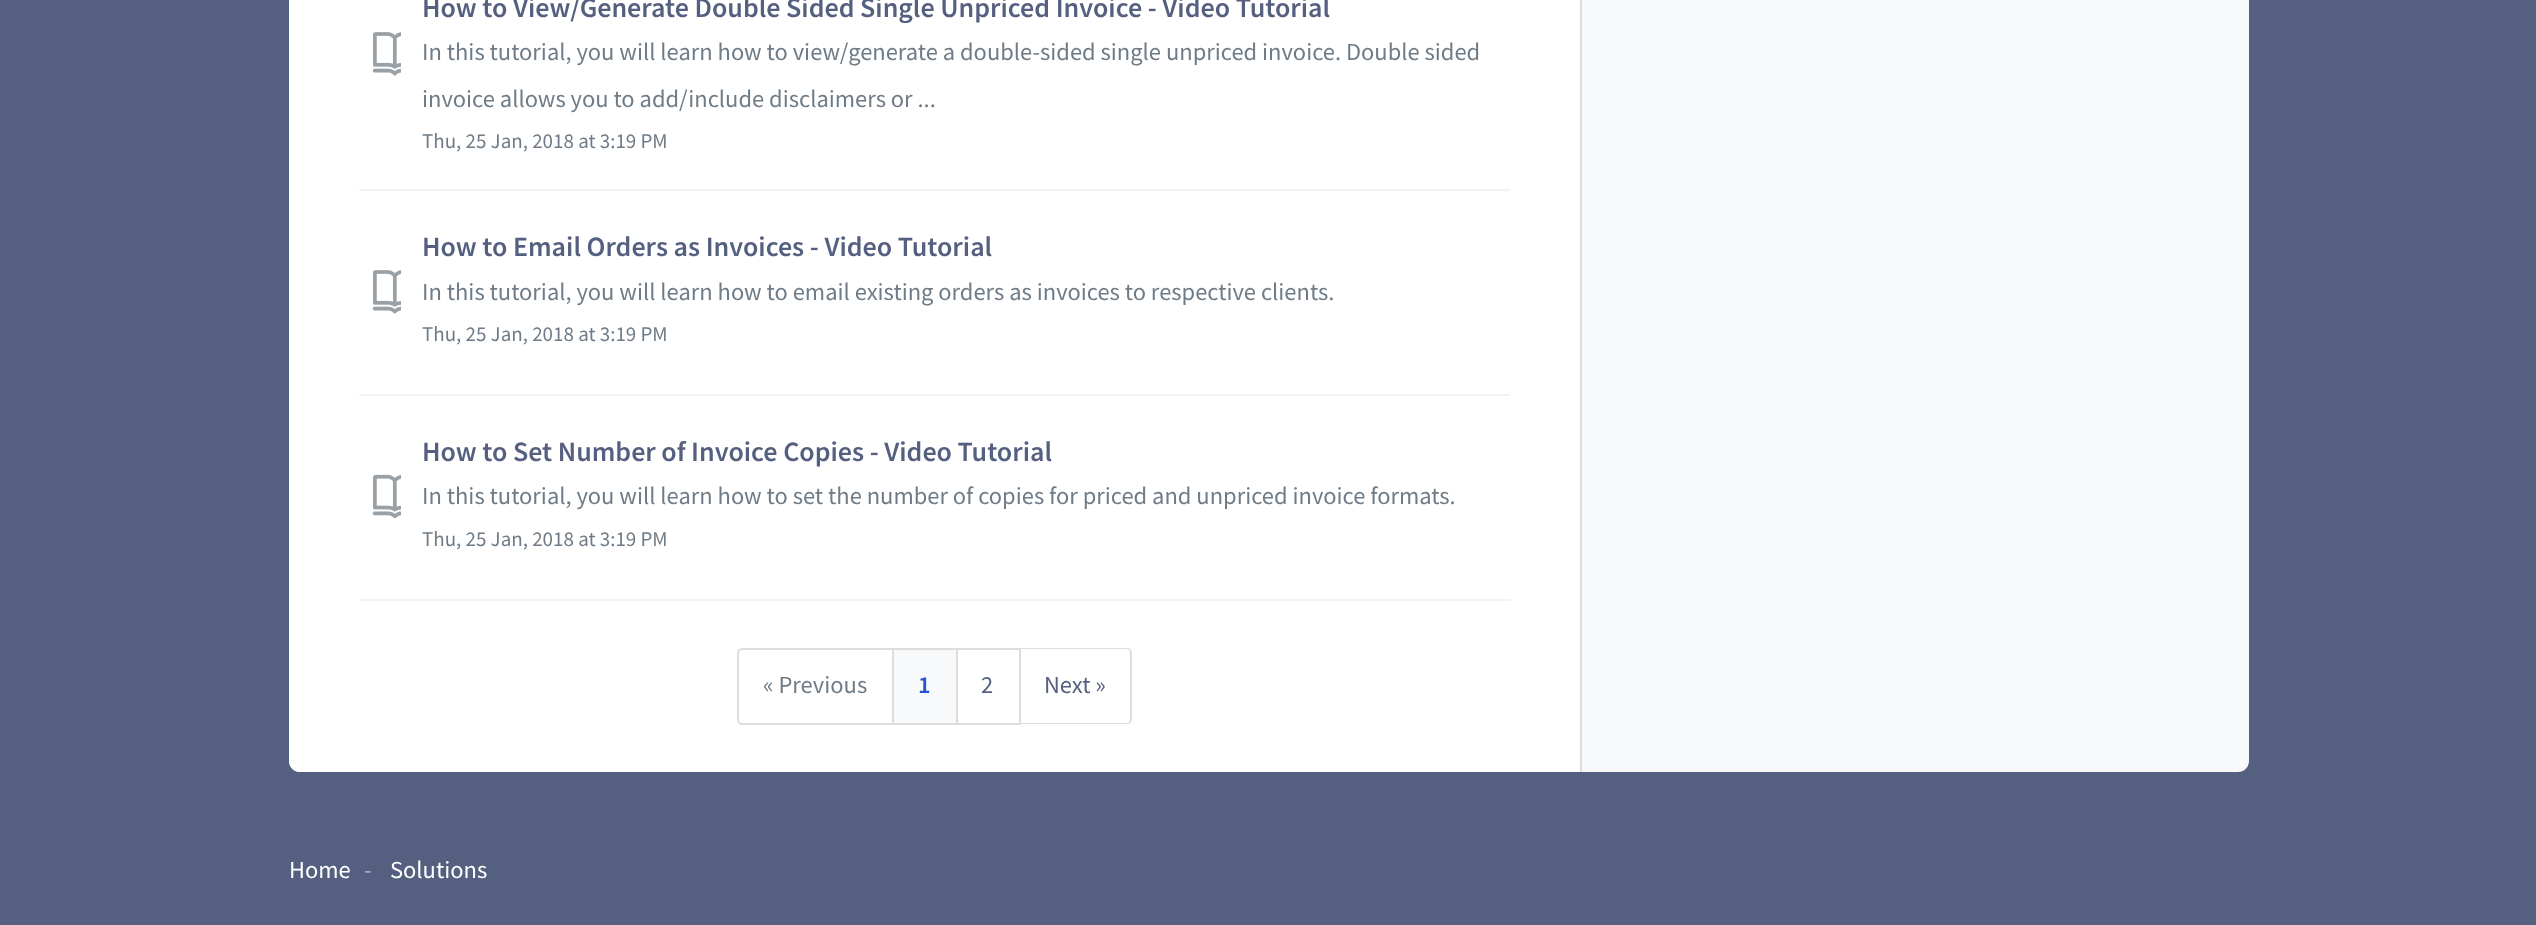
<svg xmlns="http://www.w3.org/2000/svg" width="2536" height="925">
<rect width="100%" height="100%" fill="#555f7f"/>
<rect x="289" y="-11" width="1960" height="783" rx="11" fill="#f8f9fa"/>
<path d="M300-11h1282v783h-1282c-6 0-11-5-11-11v-761c0-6 5-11 11-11z" fill="#fff"/>
<rect x="1580" width="2" height="772" fill="#dadfe3"/>
<rect x="359" y="599" width="1151" height="2" fill="#f3f3f3"/>
<text x="422" y="17" style="font-family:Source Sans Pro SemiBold;font-size:28px;font-weight:600;fill:#555f7f">How to View/Generate Double Sided Single Unpriced Invoice - Video Tutorial</text>
<image x="372" y="32" width="29" height="44" href="media/1.png"/>
<text x="422" y="60" style="font-family:Source Sans Pro;font-size:24.5px;fill:#6f7c87">In this tutorial, you will learn how to view/generate a double-sided single unpriced invoice. Double sided</text>
<text x="422" y="107" style="font-family:Source Sans Pro;font-size:24.5px;fill:#6f7c87">invoice allows you to add/include disclaimers or ...</text>
<text x="422" y="148" style="font-family:Source Sans Pro;font-size:21px;fill:#6f7c87">Thu, 25 Jan, 2018 at 3:19 PM</text>
<rect x="359" y="189" width="1151" height="2" fill="#f3f3f3"/>
<text x="422" y="256" style="font-family:Source Sans Pro SemiBold;font-size:28px;font-weight:600;fill:#555f7f">How to Email Orders as Invoices - Video Tutorial</text>
<image x="372" y="270" width="29" height="44" href="media/1.png"/>
<text x="422" y="300" style="font-family:Source Sans Pro;font-size:24.5px;fill:#6f7c87">In this tutorial, you will learn how to email existing orders as invoices to respective clients.</text>
<text x="422" y="341" style="font-family:Source Sans Pro;font-size:21px;fill:#6f7c87">Thu, 25 Jan, 2018 at 3:19 PM</text>
<rect x="359" y="394" width="1151" height="2" fill="#f3f3f3"/>
<text x="422" y="461" style="font-family:Source Sans Pro SemiBold;font-size:28px;font-weight:600;fill:#555f7f">How to Set Number of Invoice Copies - Video Tutorial</text>
<image x="372" y="474" width="29" height="45" href="media/2.png"/>
<text x="422" y="504" style="font-family:Source Sans Pro;font-size:24.5px;fill:#6f7c87">In this tutorial, you will learn how to set the number of copies for priced and unpriced invoice formats.</text>
<text x="422" y="546" style="font-family:Source Sans Pro;font-size:21px;fill:#6f7c87">Thu, 25 Jan, 2018 at 3:19 PM</text>
<path d="M742 649h151v75h-151c-2 0-4-2-4-4v-67c0-2 2-4 4-4z" fill="none" stroke="#ddd" stroke-width="2"/>
<text x="763" y="693" style="font-family:Source Sans Pro;font-size:24.5px;fill:#6f7c87">« Previous</text>
<rect x="894" y="650" width="62" height="73" fill="#f8f9fa"/>
<rect x="894" y="648" width="63" height="2" fill="#ddd"/>
<rect x="956" y="648" width="2" height="77" fill="#ddd"/>
<rect x="894" y="723" width="63" height="2" fill="#ddd"/>
<text x="918" y="693" style="font-family:Source Sans Pro SemiBold;font-size:24.5px;font-weight:600;fill:#2753d7">1</text>
<rect x="957" y="648" width="63" height="2" fill="#ddd"/>
<rect x="1019" y="648" width="2" height="77" fill="#ddd"/>
<rect x="957" y="723" width="63" height="2" fill="#ddd"/>
<text x="981" y="693" style="font-family:Source Sans Pro;font-size:24.5px;fill:#555f7f">2</text>
<path d="M1020 648h107c3 0 5 2 5 5v66c0 3-2 5-5 5h-107zm0 1h107c2 0 3 2 3 4v66c0 2-1 4-3 4h-107z" fill="#ddd" fill-rule="evenodd"/>
<text x="1044" y="693" style="font-family:Source Sans Pro;font-size:24.5px;fill:#555f7f">Next »</text>
<text x="289" y="878" style="font-family:Source Sans Pro;font-size:24.5px;fill:#fff">Home</text>
<text x="364" y="878" style="font-family:Source Sans Pro;font-size:24.5px;fill:#aaafbf">-</text>
<text x="390" y="878" style="font-family:Source Sans Pro;font-size:24.5px;fill:#fff">Solutions</text>
</svg>
